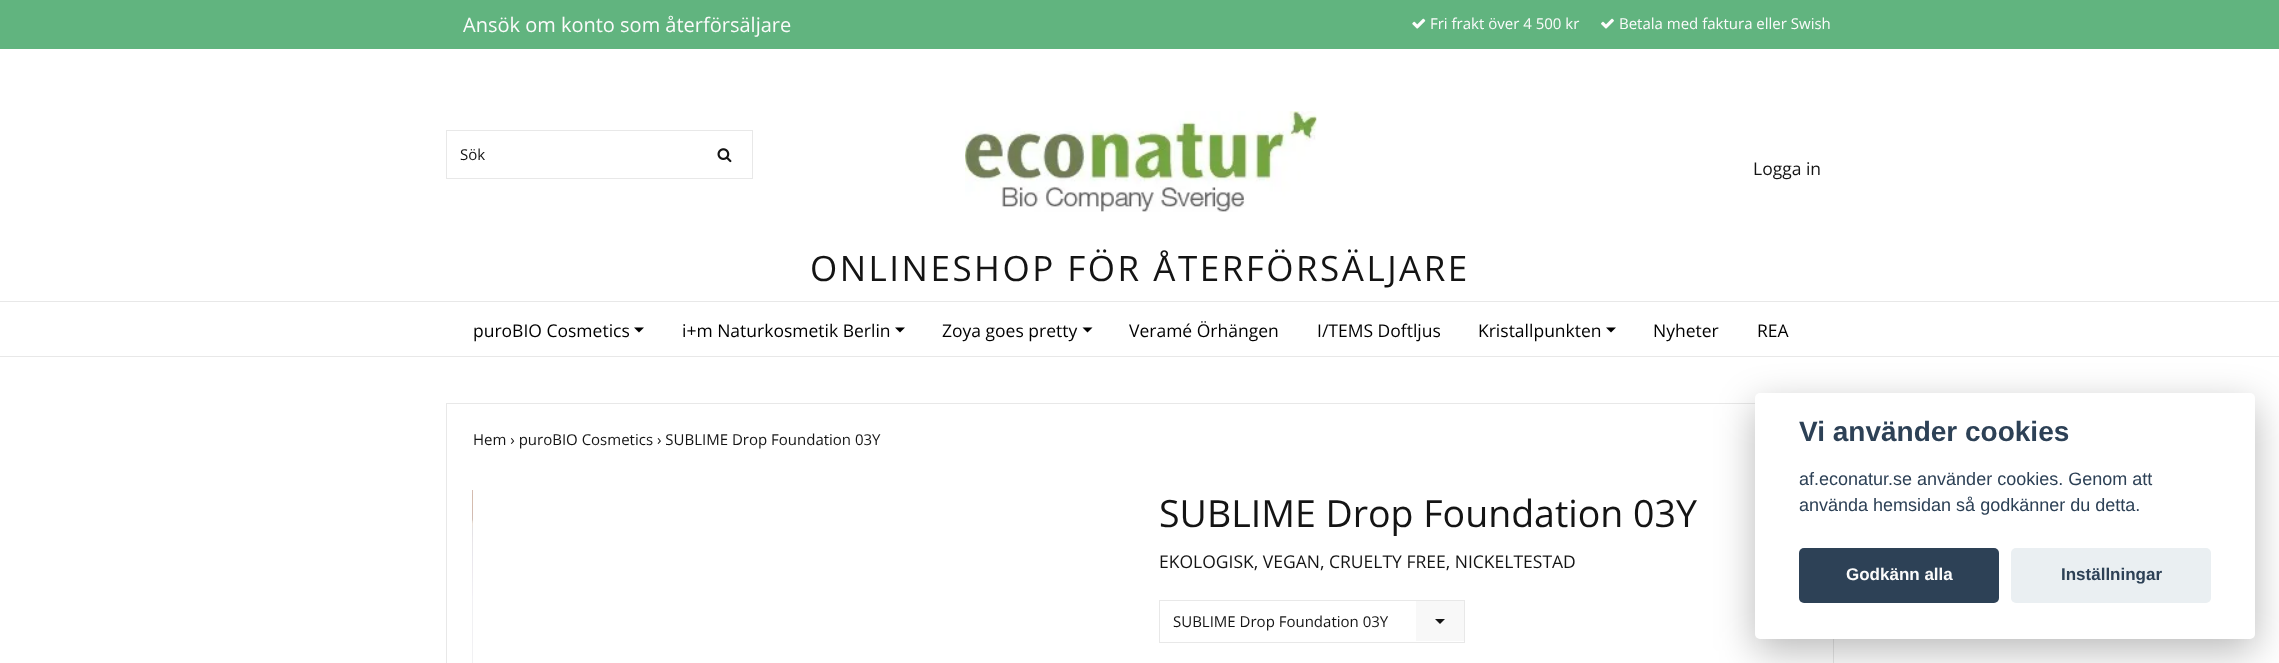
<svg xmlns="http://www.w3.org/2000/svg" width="2279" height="663">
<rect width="100%" height="100%" fill="#fff"/>
<rect width="2279" height="49" fill="#61b47f"/>
<text x="463" y="32" style="font-family:Open Sans;font-size:20px;fill:#fbfbfb">Ansök om konto som återförsäljare</text>
<image x="1412" y="18" width="14" height="11" href="media/1.png"/>
<text x="1430" y="29" style="font-family:Open Sans;font-size:15px;fill:#fbfbfb">Fri frakt över 4 500 kr</text>
<image x="1601" y="18" width="13" height="11" href="media/2.png"/>
<text x="1619" y="29" style="font-family:Open Sans;font-size:15px;fill:#fbfbfb">Betala med faktura eller Swish</text>
<rect x="446.5" y="130.5" width="306" height="48" fill="none" stroke="#e8e8e8"/>
<text x="460" y="160" style="font-family:Open Sans;font-size:15px;fill:#141414">Sök</text>
<image x="717" y="148" width="15" height="15" href="media/3.png"/>
<image x="965" y="111" width="352" height="101" href="media/4.png"/>
<text x="1753" y="175" style="font-family:Open Sans;font-size:17.5px;fill:#141414">Logga in</text>
<text x="810" y="281" style="font-family:Open Sans;font-size:35px;letter-spacing:2.5px;fill:#141414">ONLINESHOP FÖR ÅTERFÖRSÄLJARE</text>
<rect y="301" width="2279" height="1" fill="#e8e8e8"/>
<rect y="356" width="2279" height="1" fill="#e8e8e8"/>
<text x="473" y="337" style="font-family:Open Sans;font-size:17.5px;fill:#000">puroBIO Cosmetics</text>
<path d="M634 327.5h10l-5 5z" fill="#000"/>
<text x="682" y="337" style="font-family:Open Sans;font-size:17.5px;fill:#000">i+m Naturkosmetik Berlin</text>
<path d="M895 327.5h10l-5 5z" fill="#000"/>
<text x="942" y="337" style="font-family:Open Sans;font-size:17.5px;fill:#000">Zoya goes pretty</text>
<path d="M1082.5 327.5h10l-5 5z" fill="#000"/>
<text x="1129" y="337" style="font-family:Open Sans;font-size:17.5px;fill:#000">Veramé Örhängen</text>
<text x="1317" y="337" style="font-family:Open Sans;font-size:17.5px;fill:#000">I/TEMS Doftljus</text>
<text x="1478" y="337" style="font-family:Open Sans;font-size:17.5px;fill:#000">Kristallpunkten</text>
<path d="M1606 327.5h10l-5 5z" fill="#000"/>
<text x="1653" y="337" style="font-family:Open Sans;font-size:17.5px;fill:#000">Nyheter</text>
<text x="1757" y="337" style="font-family:Open Sans;font-size:17.5px;fill:#000">REA</text>
<rect x="446.5" y="403.5" width="1387" height="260" fill="none" stroke="#e8e8e8"/>
<text x="473" y="445" style="font-family:Open Sans;font-size:15px;fill:#141414">Hem › puroBIO Cosmetics › SUBLIME Drop Foundation 03Y</text>
<image x="472" y="490" width="1" height="173" href="media/5.png"/>
<text x="1159" y="527" style="font-family:Open Sans;font-size:37.5px;fill:#141414">SUBLIME Drop Foundation 03Y</text>
<text x="1159" y="568" style="font-family:Open Sans;font-size:17.5px;fill:#141414">EKOLOGISK, VEGAN, CRUELTY FREE, NICKELTESTAD</text>
<rect x="1159.5" y="600.5" width="305" height="42" fill="none" stroke="#e8e8e8"/>
<text x="1173" y="627" style="font-family:Open Sans;font-size:15px;fill:#141414">SUBLIME Drop Foundation 03Y</text>
<rect x="1416" y="601" width="48" height="40" fill="#f8f8f8"/>
<path d="M1435 619h10l-5 5z" fill="#141414"/>
<rect x="1755" y="405" width="500" height="246" rx="5" fill="#02020347" filter="blur(19px)"/>
<rect x="1755" y="393" width="500" height="246" rx="5" fill="#fff"/>
<text x="1799" y="441" style="font-family:Liberation Sans;font-size:28px;font-weight:bold;fill:#2d4156">Vi använder cookies</text>
<text x="1799" y="485" style="font-family:Liberation Sans;font-size:18px;fill:#2d4156">af.econatur.se använder cookies. Genom att</text>
<text x="1799" y="511" style="font-family:Liberation Sans;font-size:18px;fill:#2d4156">använda hemsidan så godkänner du detta.</text>
<rect x="1799" y="548" width="200" height="55" rx="5" fill="#2d4156"/>
<text x="1846" y="580" style="font-family:Liberation Sans;font-size:17px;font-weight:bold;fill:#fbfbfb">Godkänn alla</text>
<rect x="2011" y="548" width="200" height="55" rx="5" fill="#eaeff2"/>
<text x="2061" y="580" style="font-family:Liberation Sans;font-size:17px;font-weight:bold;fill:#2d4156">Inställningar</text>
</svg>
